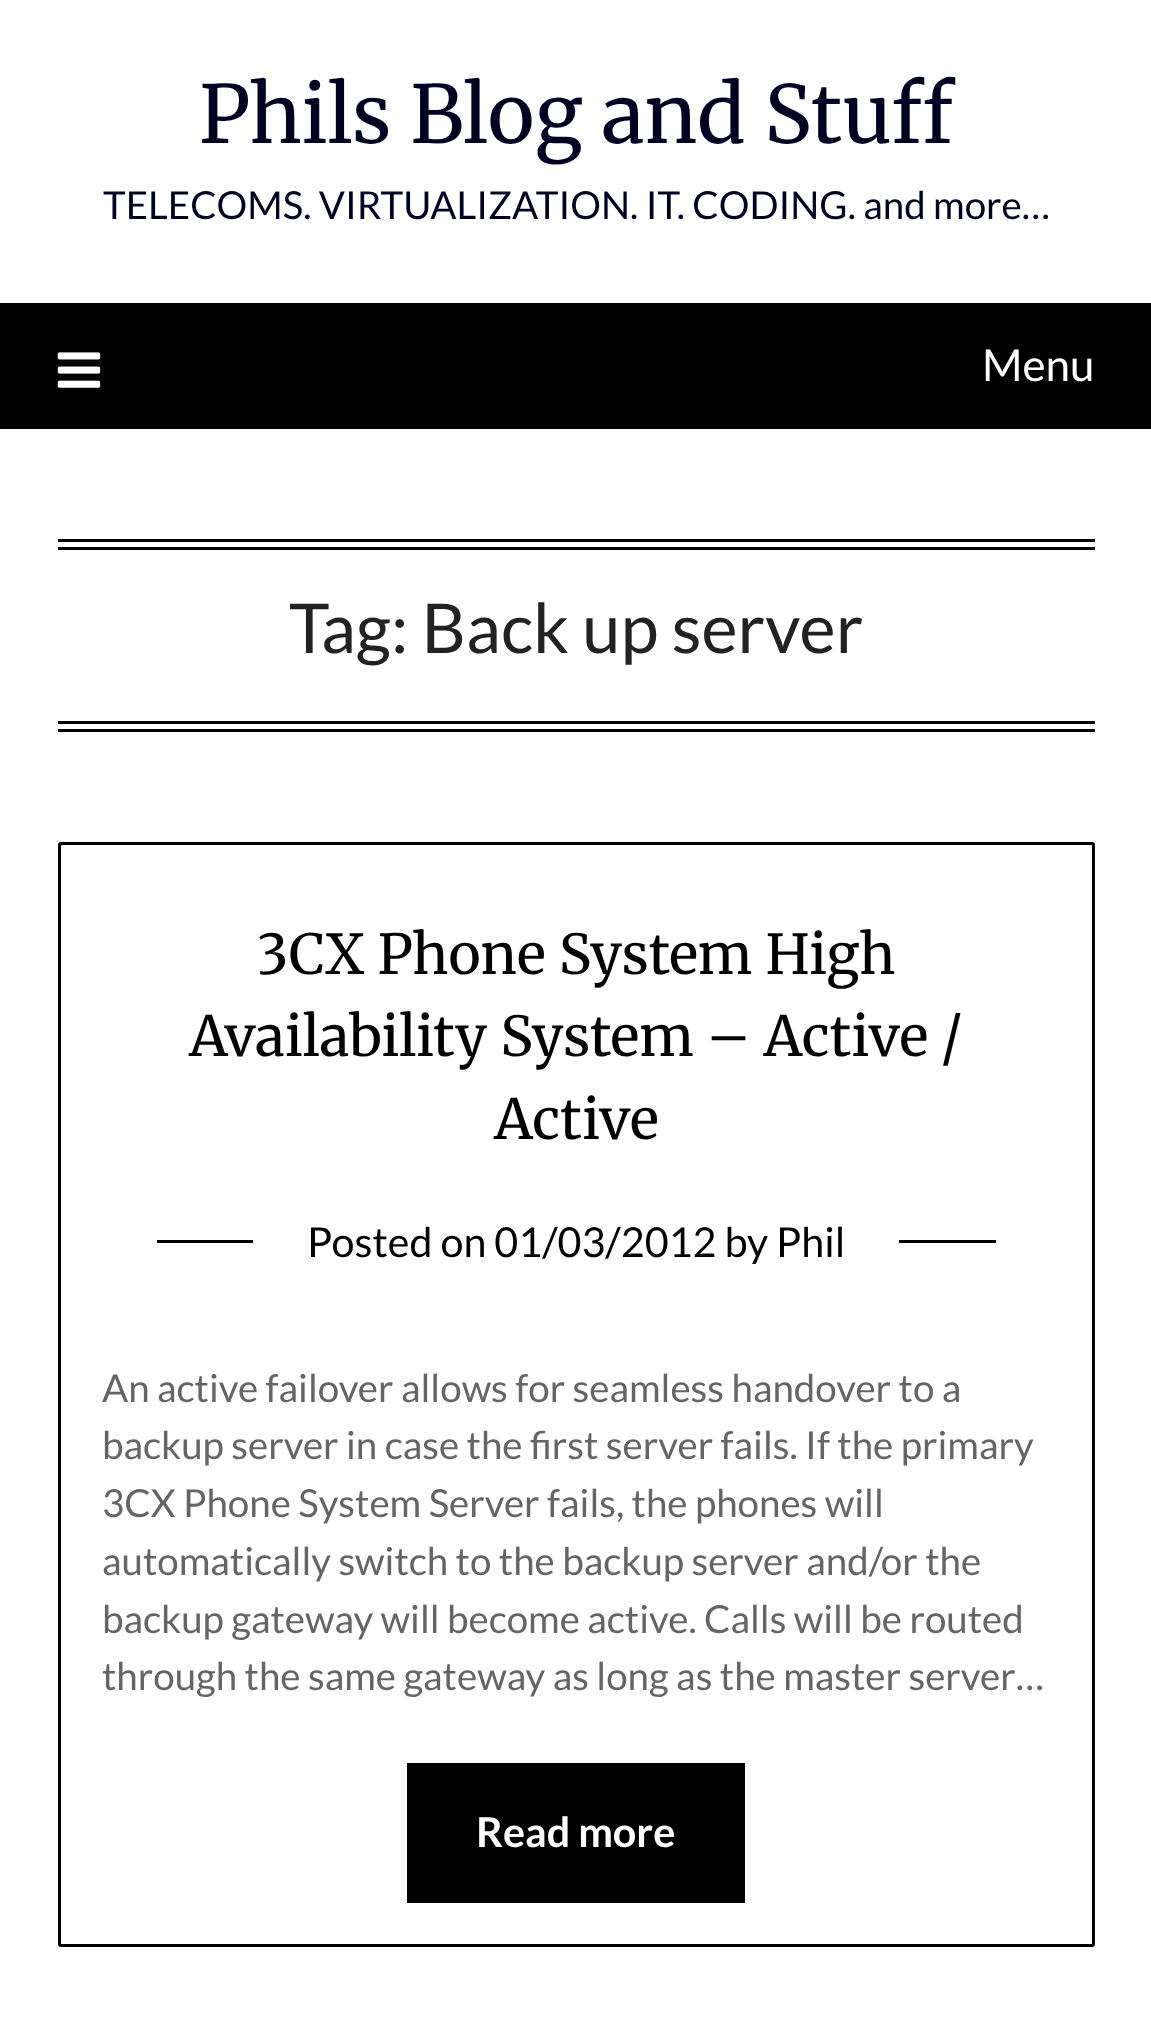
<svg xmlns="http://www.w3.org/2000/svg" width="1151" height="2017">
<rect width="100%" height="100%" fill="#fff"/>
<text x="199" y="143" style="font-family:Merriweather;font-size:79.75px;fill:#000222">Phils Blog and Stuff</text>
<text x="103" y="219" style="font-family:Lato;font-size:38.5px;fill:#000222">TELECOMS. VIRTUALIZATION. IT. CODING. and more…</text>
<rect y="303" width="1151" height="126" fill="#000"/>
<image x="57" y="352" width="44" height="36" href="media/1.png"/>
<text x="982" y="381" style="font-family:Lato;font-size:44px;fill:#fff">Menu</text>
<rect x="58" y="539" width="1037" height="3" fill="#000"/>
<rect x="58" y="547" width="1037" height="3" fill="#000"/>
<rect x="58" y="721" width="1037" height="3" fill="#000"/>
<rect x="58" y="729" width="1037" height="3" fill="#000"/>
<text x="289" y="653" style="font-family:Lato;font-size:68.75px;fill:#222">Tag: Back up server</text>
<rect x="59.5" y="843.5" width="1034" height="1102" rx="1.5" fill="none" stroke="#000" stroke-width="3"/>
<text x="257" y="974" style="font-family:Merriweather;font-size:55px;fill:#000">3CX Phone System High</text>
<text x="189" y="1056" style="font-family:Merriweather;font-size:55px;fill:#000">Availability System – Active /</text>
<text x="494" y="1139" style="font-family:Merriweather;font-size:55px;fill:#000">Active</text>
<rect x="157" y="1240" width="839" height="3" fill="#000"/>
<rect x="253" y="1240" width="646" height="3" fill="#fff"/>
<text x="307" y="1257" style="font-family:Lato;font-size:41.25px;fill:#000">Posted on 01/03/2012 by Phil</text>
<text x="102" y="1402" style="font-family:Lato;font-size:38.5px;fill:#656565">An active failover allows for seamless handover to a</text>
<text x="102" y="1459" style="font-family:Lato;font-size:38.5px;fill:#656565">backup server in case the first server fails. If the primary</text>
<text x="102" y="1517" style="font-family:Lato;font-size:38.5px;fill:#656565">3CX Phone System Server fails, the phones will</text>
<text x="102" y="1575" style="font-family:Lato;font-size:38.5px;fill:#656565">automatically switch to the backup server and/or the</text>
<text x="102" y="1633" style="font-family:Lato;font-size:38.5px;fill:#656565">backup gateway will become active. Calls will be routed</text>
<text x="102" y="1690" style="font-family:Lato;font-size:38.5px;fill:#656565">through the same gateway as long as the master server…</text>
<rect x="407" y="1763" width="338" height="140" fill="#000"/>
<text x="476" y="1847" style="font-family:Lato;font-size:41.25px;font-weight:bold;fill:#fff">Read more</text>
</svg>
